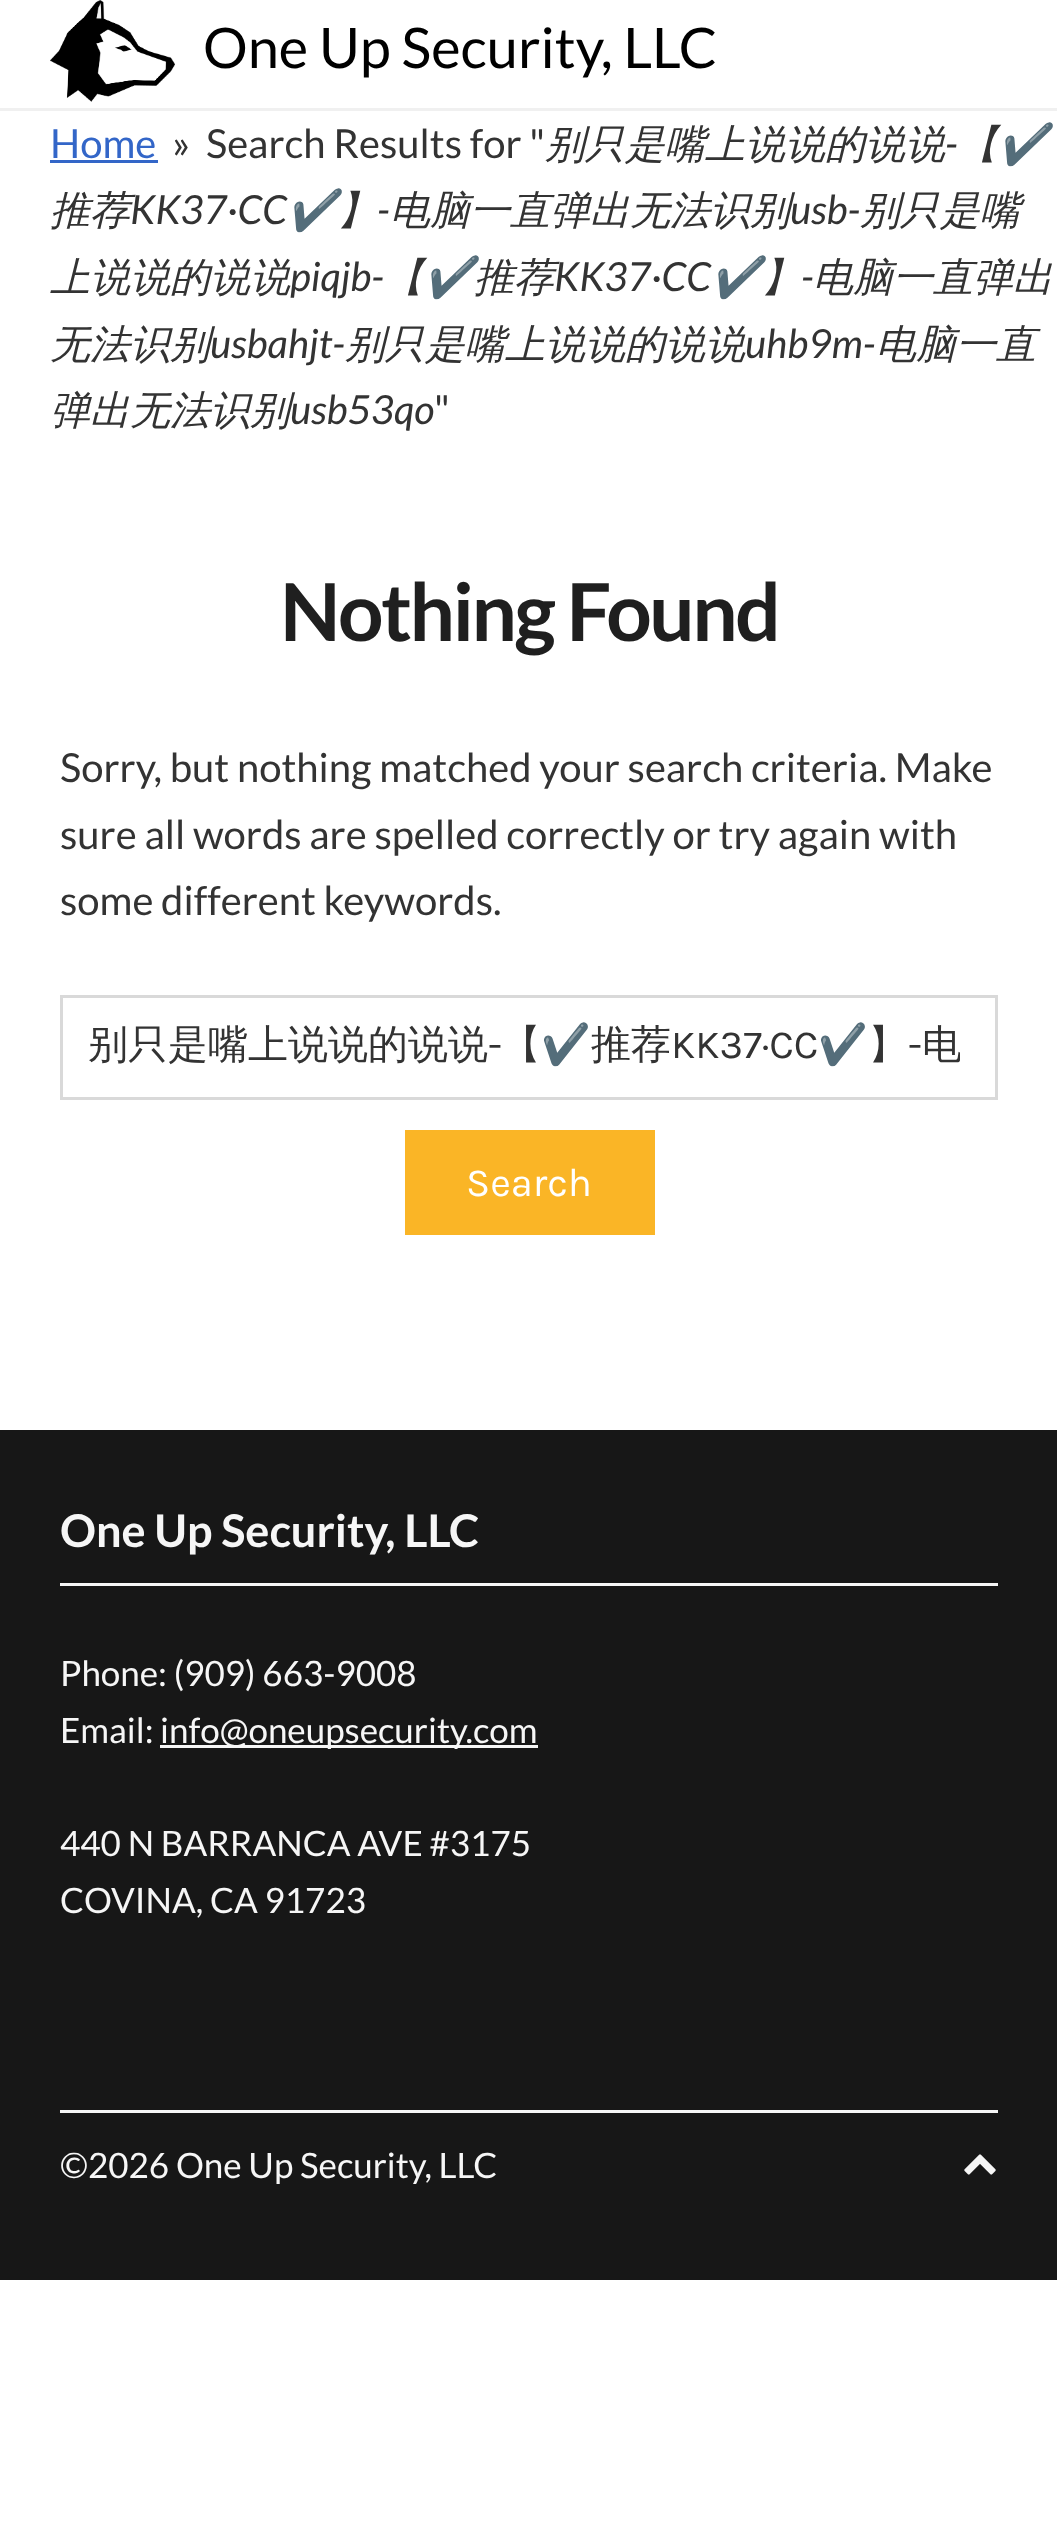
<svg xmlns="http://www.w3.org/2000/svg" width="1057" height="2537">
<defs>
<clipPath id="clip1"><rect x="88" y="1020" width="872" height="53"/></clipPath>
</defs>
<rect width="100%" height="100%" fill="#fff"/>
<rect y="108" width="1057" height="3" fill="#f0f0f0"/>
<image x="50" y="0" width="125" height="102" href="media/1.png"/>
<text x="203" y="68" style="font-family:Lato;font-size:56px;fill:#000">One Up Security, LLC</text>
<text x="50" y="158" style="font-family:Lato;font-size:40px;fill:#3366c8">Home</text>
<rect x="50" y="160" width="108" height="3" fill="#3366c8"/>
<text x="172" y="158" style="font-family:Lato;font-size:40px;fill:#333" xml:space="preserve">»  Search Results for "</text>
<text x="545" y="158" style="font-family:WenQuanYi Zen Hei;font-size:40px;font-weight:500;font-style:italic;fill:#333">别只是嘴上说说的说说</text>
<text x="945" y="158" style="font-family:Lato;font-size:40px;font-style:italic;fill:#333">-</text>
<text x="958" y="158" style="font-family:WenQuanYi Zen Hei;font-size:40px;font-weight:500;font-style:italic;fill:#333">【</text>
<text x="998" y="158" style="font-family:Noto Color Emoji;font-size:40px;font-style:italic;fill:#333">✔️</text>
<text x="50" y="224" style="font-family:WenQuanYi Zen Hei;font-size:40px;font-weight:500;font-style:italic;fill:#333">推荐</text>
<text x="130" y="224" style="font-family:Lato;font-size:40px;font-style:italic;fill:#333">KK37·CC</text>
<text x="287" y="224" style="font-family:Noto Color Emoji;font-size:40px;font-style:italic;fill:#333">✔️</text>
<text x="337" y="224" style="font-family:WenQuanYi Zen Hei;font-size:40px;font-weight:500;font-style:italic;fill:#333">】</text>
<text x="377" y="224" style="font-family:Lato;font-size:40px;font-style:italic;fill:#333">-</text>
<text x="390" y="224" style="font-family:WenQuanYi Zen Hei;font-size:40px;font-weight:500;font-style:italic;fill:#333">电脑一直弹出无法识别</text>
<text x="790" y="224" style="font-family:Lato;font-size:40px;font-style:italic;fill:#333">usb-</text>
<text x="860" y="224" style="font-family:WenQuanYi Zen Hei;font-size:40px;font-weight:500;font-style:italic;fill:#333">别只是嘴</text>
<text x="50" y="291" style="font-family:WenQuanYi Zen Hei;font-size:40px;font-weight:500;font-style:italic;fill:#333">上说说的说说</text>
<text x="290" y="291" style="font-family:Lato;font-size:40px;font-style:italic;fill:#333">piqjb-</text>
<text x="384" y="291" style="font-family:WenQuanYi Zen Hei;font-size:40px;font-weight:500;font-style:italic;fill:#333">【</text>
<text x="424" y="291" style="font-family:Noto Color Emoji;font-size:40px;font-style:italic;fill:#333">✔️</text>
<text x="474" y="291" style="font-family:WenQuanYi Zen Hei;font-size:40px;font-weight:500;font-style:italic;fill:#333">推荐</text>
<text x="554" y="291" style="font-family:Lato;font-size:40px;font-style:italic;fill:#333">KK37·CC</text>
<text x="711" y="291" style="font-family:Noto Color Emoji;font-size:40px;font-style:italic;fill:#333">✔️</text>
<text x="761" y="291" style="font-family:WenQuanYi Zen Hei;font-size:40px;font-weight:500;font-style:italic;fill:#333">】</text>
<text x="801" y="291" style="font-family:Lato;font-size:40px;font-style:italic;fill:#333">-</text>
<text x="813" y="291" style="font-family:WenQuanYi Zen Hei;font-size:40px;font-weight:500;font-style:italic;fill:#333">电脑一直弹出</text>
<text x="50" y="358" style="font-family:WenQuanYi Zen Hei;font-size:40px;font-weight:500;font-style:italic;fill:#333">无法识别</text>
<text x="210" y="358" style="font-family:Lato;font-size:40px;font-style:italic;fill:#333">usbahjt-</text>
<text x="345" y="358" style="font-family:WenQuanYi Zen Hei;font-size:40px;font-weight:500;font-style:italic;fill:#333">别只是嘴上说说的说说</text>
<text x="745" y="358" style="font-family:Lato;font-size:40px;font-style:italic;fill:#333">uhb9m-</text>
<text x="876" y="358" style="font-family:WenQuanYi Zen Hei;font-size:40px;font-weight:500;font-style:italic;fill:#333">电脑一直</text>
<text x="50" y="424" style="font-family:WenQuanYi Zen Hei;font-size:40px;font-weight:500;font-style:italic;fill:#333">弹出无法识别</text>
<text x="290" y="424" style="font-family:Lato;font-size:40px;font-style:italic;fill:#333">usb53qo</text>
<text x="434" y="424" style="font-family:Lato;font-size:40px;fill:#333">"</text>
<text x="280" y="641" style="font-family:Lato;font-size:80px;font-weight:bold;letter-spacing:-2.5px;fill:#1f1f1f">Nothing Found</text>
<text x="60" y="782" style="font-family:Lato;font-size:40px;fill:#333">Sorry, but nothing matched your search criteria. Make</text>
<text x="60" y="849" style="font-family:Lato;font-size:40px;fill:#333">sure all words are spelled correctly or try again with</text>
<text x="60" y="915" style="font-family:Lato;font-size:40px;fill:#333">some different keywords.</text>
<rect x="61.5" y="996.5" width="935" height="102" fill="none" stroke="#d9d9d9" stroke-width="3"/>
<text x="88" y="1058" style="font-family:WenQuanYi Zen Hei;font-size:40px;font-weight:500;fill:#333">别只是嘴上说说的说说</text>
<text x="488" y="1058" style="font-family:Karla;font-size:40px;fill:#333">-</text>
<text x="501" y="1058" style="font-family:WenQuanYi Zen Hei;font-size:40px;font-weight:500;fill:#333">【</text>
<text x="541" y="1058" style="font-family:Noto Color Emoji;font-size:40px;fill:#333">✔️</text>
<text x="591" y="1058" style="font-family:WenQuanYi Zen Hei;font-size:40px;font-weight:500;fill:#333">推荐</text>
<text x="671" y="1058" style="font-family:Karla;font-size:40px;fill:#333">KK37·CC</text>
<text x="818" y="1058" style="font-family:Noto Color Emoji;font-size:40px;fill:#333">✔️</text>
<text x="868" y="1058" style="font-family:WenQuanYi Zen Hei;font-size:40px;font-weight:500;fill:#333">】</text>
<text x="908" y="1058" style="font-family:Karla;font-size:40px;fill:#333">-</text>
<g clip-path="url(#clip1)">
<text x="922" y="1058" style="font-family:WenQuanYi Zen Hei;font-size:40px;font-weight:500;fill:#333">电</text>
</g>
<rect x="405" y="1130" width="250" height="105" fill="#fab526"/>
<text x="466" y="1196" style="font-family:Karla;font-size:40px;fill:#fff">Search</text>
<rect y="1430" width="1057" height="850" fill="#171717"/>
<rect x="60" y="2110" width="938" height="3" fill="#f6f6f6"/>
<rect x="60" y="1583" width="938" height="3" fill="#f6f6f6"/>
<text x="60" y="1547" style="font-family:Lato;font-size:45px;font-weight:bold;fill:#f6f6f6">One Up Security, LLC</text>
<text x="60" y="1686" style="font-family:Lato;font-size:35px;fill:#f6f6f6">Phone: (909) 663-9008</text>
<text x="60" y="1743" style="font-family:Lato;font-size:35px;fill:#f6f6f6">Email:</text>
<rect x="160" y="1745" width="378" height="3" fill="#f6f6f6"/>
<text x="160" y="1743" style="font-family:Lato;font-size:35px;fill:#f6f6f6">info@oneupsecurity.com</text>
<text x="60" y="1856" style="font-family:Lato;font-size:35px;fill:#f6f6f6">440 N BARRANCA AVE #3175</text>
<text x="60" y="1913" style="font-family:Lato;font-size:35px;fill:#f6f6f6">COVINA, CA 91723</text>
<text x="60" y="2178" style="font-family:Lato;font-size:35px;fill:#f6f6f6">©2026 One Up Security, LLC</text>
<image x="964" y="2154" width="32" height="21" href="media/2.png"/>
</svg>
